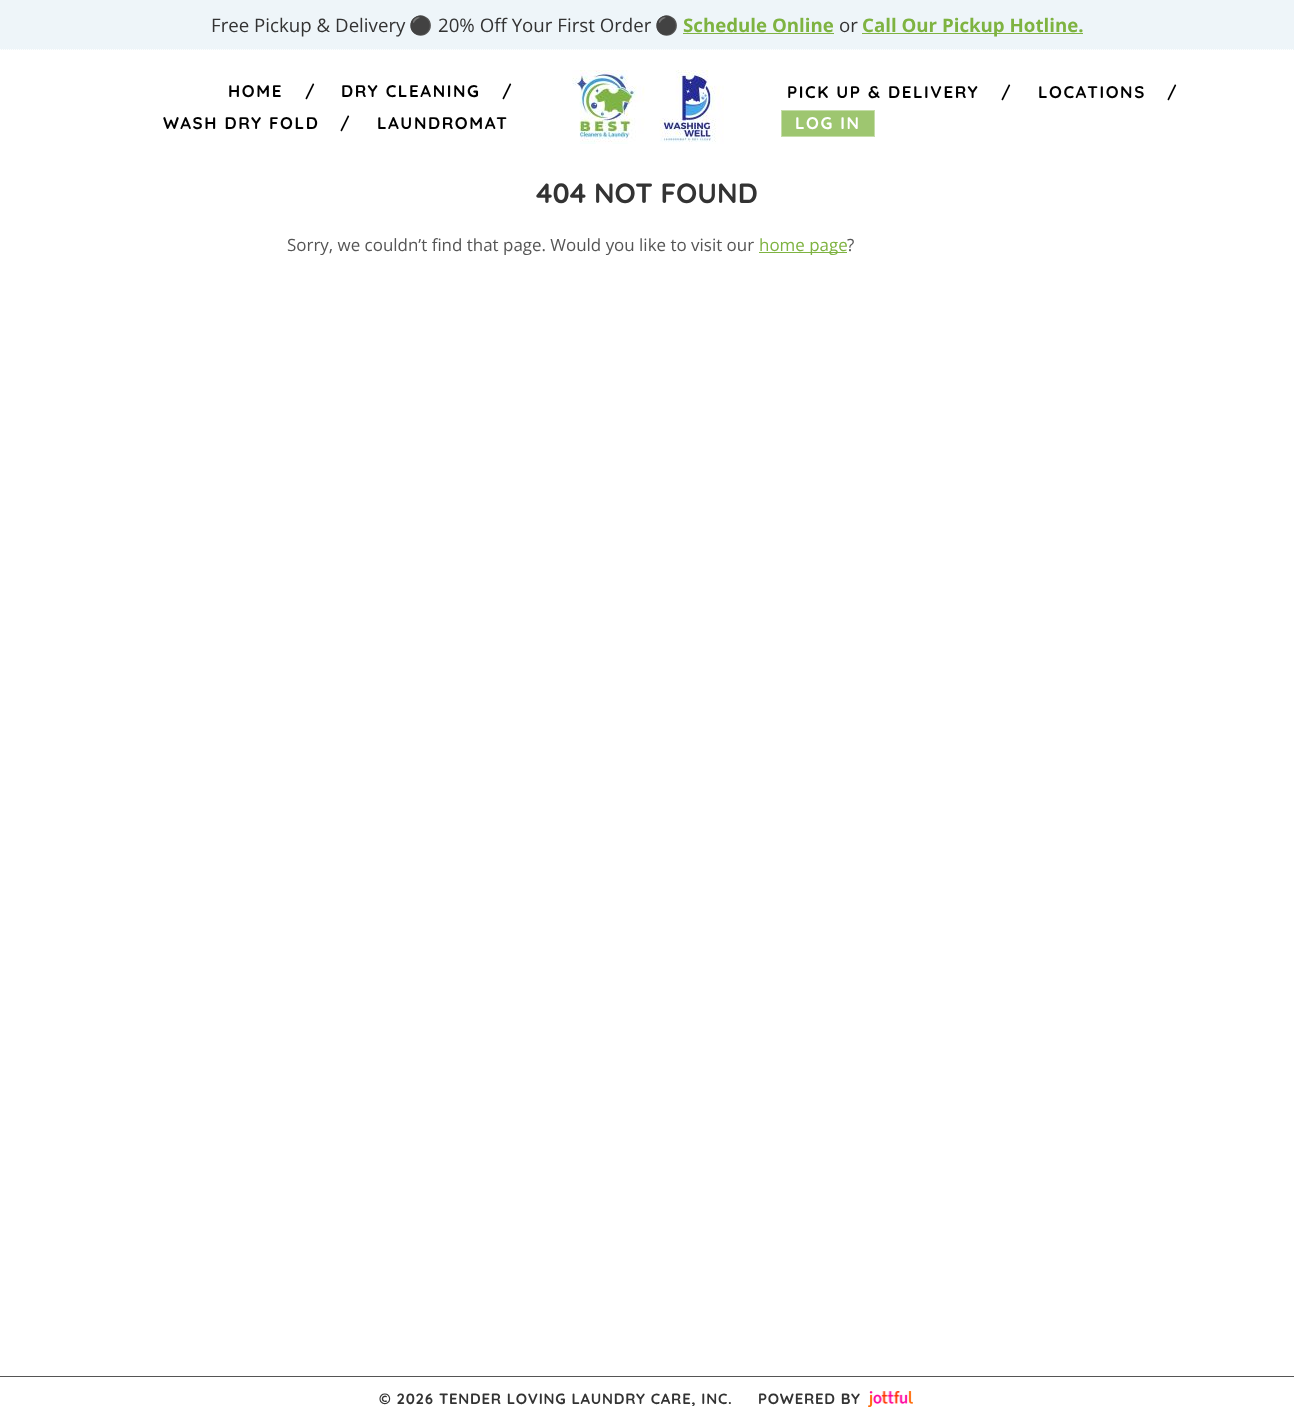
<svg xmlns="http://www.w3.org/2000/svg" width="1294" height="1422">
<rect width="100%" height="100%" fill="#fff"/>
<rect width="1294" height="50" fill="#eef5f9"/>
<path d="M0 49.5h1294" fill="none" stroke="#fff" stroke-dasharray="1 1"/>
<text x="211" y="32" style="font-family:Open Sans;font-size:18.7px;fill:#333">Free Pickup &amp; Delivery</text>
<text x="409" y="32" style="font-family:Noto Color Emoji;font-size:18.7px;fill:#333">⚫</text>
<text x="438" y="32" style="font-family:Open Sans;font-size:18.7px;fill:#333">20% Off Your First Order</text>
<text x="655" y="32" style="font-family:Noto Color Emoji;font-size:18.7px;fill:#333">⚫</text>
<text x="683" y="32" style="font-family:Open Sans;font-size:18.7px;font-weight:bold;fill:#7eb341">Schedule Online</text>
<rect x="683" y="33" width="151" height="1" fill="#7eb341"/>
<text x="839" y="32" style="font-family:Open Sans;font-size:18.7px;fill:#333">or</text>
<rect x="862" y="33" width="221" height="1" fill="#7eb341"/>
<text x="862" y="32" style="font-family:Open Sans;font-size:18.7px;font-weight:bold;fill:#7eb341">Call Our Pickup Hotline.</text>
<text x="228" y="97" style="font-family:Quicksand;font-size:16.95px;font-weight:300;letter-spacing:1.6px;fill:#000">HOME</text>
<text x="305" y="97" style="font-family:Quicksand;font-size:16.95px;font-weight:300;letter-spacing:1.6px;fill:#000">/</text>
<text x="341" y="97" style="font-family:Quicksand;font-size:16.95px;font-weight:300;letter-spacing:1.6px;fill:#000">DRY CLEANING</text>
<text x="502" y="97" style="font-family:Quicksand;font-size:16.95px;font-weight:300;letter-spacing:1.6px;fill:#000">/</text>
<text x="163" y="129" style="font-family:Quicksand;font-size:16.95px;font-weight:300;letter-spacing:1.6px;fill:#000">WASH DRY FOLD</text>
<text x="340" y="129" style="font-family:Quicksand;font-size:16.95px;font-weight:300;letter-spacing:1.6px;fill:#000">/</text>
<text x="377" y="129" style="font-family:Quicksand;font-size:16.95px;font-weight:300;letter-spacing:1.6px;fill:#000">LAUNDROMAT</text>
<image x="572" y="70" width="152" height="74" href="media/1.png"/>
<text x="787" y="98" style="font-family:Quicksand;font-size:16.95px;font-weight:300;letter-spacing:1.6px;fill:#000">PICK UP &amp; DELIVERY</text>
<text x="1001" y="98" style="font-family:Quicksand;font-size:16.95px;font-weight:300;letter-spacing:1.6px;fill:#000">/</text>
<text x="1038" y="98" style="font-family:Quicksand;font-size:16.95px;font-weight:300;letter-spacing:1.6px;fill:#000">LOCATIONS</text>
<text x="1167" y="98" style="font-family:Quicksand;font-size:16.95px;font-weight:300;letter-spacing:1.6px;fill:#000">/</text>
<rect x="781.5" y="110.5" width="93" height="26" fill="#9ec670" stroke="#c5dda9"/>
<text x="795" y="129" style="font-family:Quicksand;font-size:16.95px;font-weight:300;letter-spacing:1.6px;fill:#fff">LOG IN</text>
<text x="536" y="203" style="font-family:Quicksand;font-size:28px;font-weight:300;fill:#333">404 NOT FOUND</text>
<text x="287" y="251" style="font-family:Open Sans;font-size:16.95px;fill:#555">Sorry, we couldn’t find that page. Would you like to visit our</text>
<rect x="759" y="252" width="88" height="1" fill="#7eb341"/>
<text x="759" y="251" style="font-family:Open Sans;font-size:16.95px;fill:#7eb341">home page</text>
<text x="847" y="251" style="font-family:Open Sans;font-size:16.95px;fill:#555">?</text>
<rect y="1376" width="1294" height="1" fill="#555"/>
<text x="379" y="1404" style="font-family:Quicksand;font-size:14.9px;font-weight:300;letter-spacing:0.8px;fill:#333">© 2026 TENDER LOVING LAUNDRY CARE, INC.</text>
<text x="758" y="1404" style="font-family:Quicksand;font-size:14.9px;font-weight:300;letter-spacing:0.8px;fill:#333">POWERED BY</text>
<image x="868" y="1391" width="45" height="16" href="media/2.png"/>
</svg>
